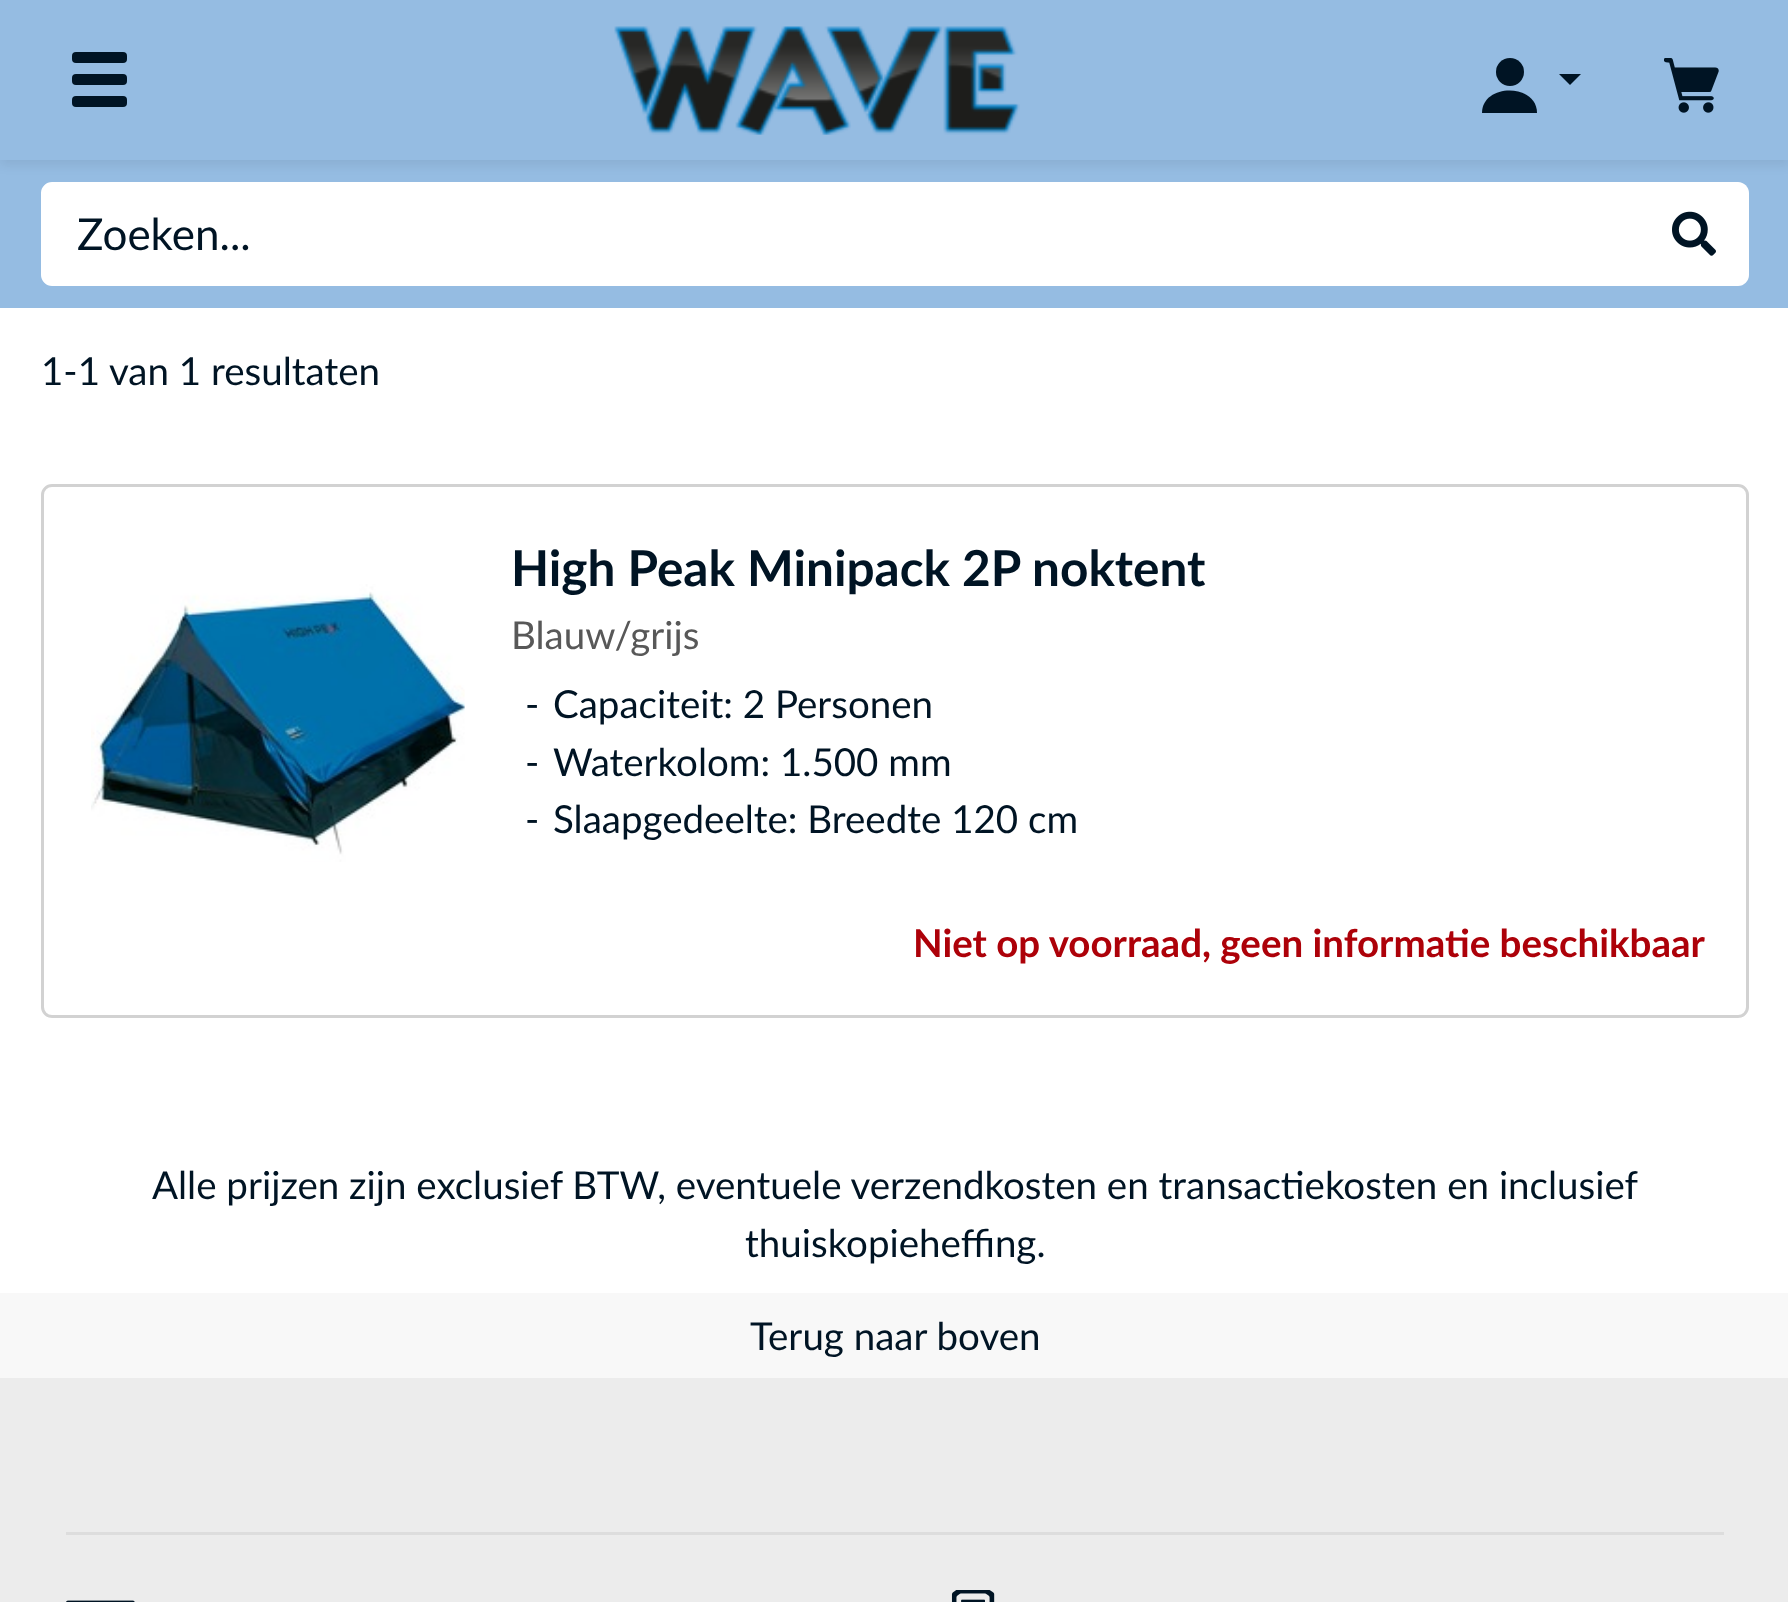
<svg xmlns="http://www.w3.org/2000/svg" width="1788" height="1602">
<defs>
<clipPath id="clip1"><path d="M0 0h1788v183h-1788zm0 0h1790v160h-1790z" clip-rule="evenodd"/></clipPath>
</defs>
<rect width="100%" height="100%" fill="#fff"/>
<rect width="1788" height="308" fill="#95bce2"/>
<g clip-path="url(#clip1)">
<rect y="6" width="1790" height="159" fill="#00000012" filter="blur(5.5px)"/>
</g>
<rect x="72" y="52" width="55" height="11" rx="4" fill="#001424"/>
<rect x="72" y="74" width="55" height="11" rx="4" fill="#001424"/>
<rect x="72" y="96" width="55" height="11" rx="4" fill="#001424"/>
<image x="614" y="26" width="406" height="109" href="media/1.png"/>
<circle cx="1510" cy="72" r="14" fill="#001424"/>
<path d="M1559 74h22l-11 11z" fill="#001424"/>
<path d="M1537 113h-55c0-30 55-30 55 0z" fill="#001424"/>
<image x="1664" y="58" width="55" height="55" href="media/2.png"/>
<path d="M52 183.5h1585.5v101h-1585.5c-5 0-9.5-4.5-9.5-9.5v-82c0-5 4.5-9.5 9.5-9.5z" fill="#fff" stroke="#fff" stroke-width="3"/>
<text x="77" y="250" style="font-family:Lato;font-size:44px;fill:#001424">Zoeken...</text>
<path d="M1639 182h99c6 0 11 5 11 11v82c0 6-5 11-11 11h-99z" fill="#fff"/>
<image x="1672" y="211" width="44" height="45" href="media/3.png"/>
<text x="41" y="385" style="font-family:Lato;font-size:38.5px;fill:#001424">1-1 van 1 resultaten</text>
<rect x="42.5" y="485.5" width="1705" height="531" rx="9.5" fill="none" stroke="#d2d2d2" stroke-width="3"/>
<image x="91" y="584" width="374" height="278" href="media/4.png"/>
<text x="511" y="586" style="font-family:Lato;font-size:49.5px;font-weight:bold;fill:#001424">High Peak Minipack 2P noktent</text>
<text x="511" y="649" style="font-family:Lato;font-size:38.5px;fill:#585858">Blauw/grijs</text>
<text x="525" y="718" style="font-family:Lato;font-size:38.5px;fill:#001424">-</text>
<text x="553" y="718" style="font-family:Lato;font-size:38.5px;fill:#001424">Capaciteit: 2 Personen</text>
<text x="525" y="776" style="font-family:Lato;font-size:38.5px;fill:#001424">-</text>
<text x="553" y="776" style="font-family:Lato;font-size:38.5px;fill:#001424">Waterkolom: 1.500 mm</text>
<text x="525" y="833" style="font-family:Lato;font-size:38.5px;fill:#001424">-</text>
<text x="553" y="833" style="font-family:Lato;font-size:38.5px;fill:#001424">Slaapgedeelte: Breedte 120 cm</text>
<text x="913" y="957" style="font-family:Lato;font-size:38.5px;font-weight:bold;fill:#ad0109">Niet op voorraad, geen informatie beschikbaar</text>
<text x="152" y="1199" style="font-family:Lato;font-size:38.5px;fill:#001424">Alle prijzen zijn exclusief BTW, eventuele verzendkosten en transactiekosten en inclusief</text>
<text x="745" y="1257" style="font-family:Lato;font-size:38.5px;fill:#001424">thuiskopieheffing.</text>
<rect y="1293" width="1788" height="85" fill="#f8f8f8"/>
<text x="750" y="1350" style="font-family:Lato;font-size:38.5px;fill:#001424">Terug naar boven</text>
<rect y="1378" width="1788" height="224" fill="#ececec"/>
<rect x="66" y="1532" width="1658" height="3" fill="#ddd"/>
<image x="66" y="1600" width="69" height="2" href="media/5.png"/>
<image x="951" y="1590" width="44" height="12" href="media/6.png"/>
</svg>
